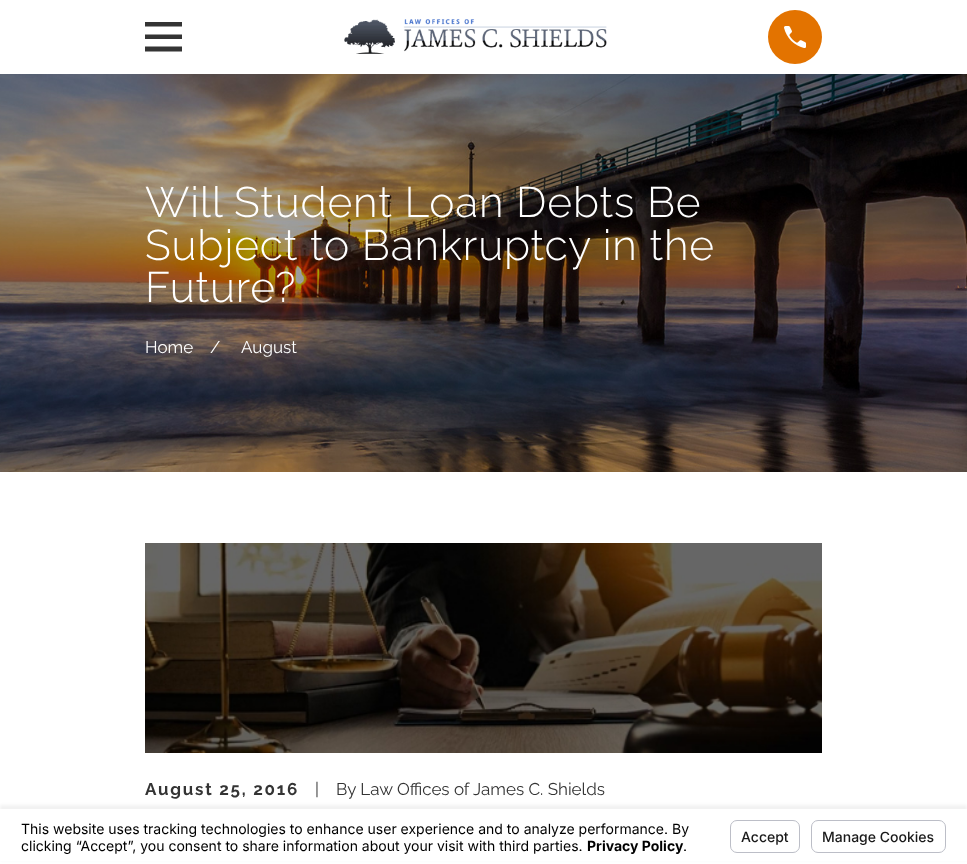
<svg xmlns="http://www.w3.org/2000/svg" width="967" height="864">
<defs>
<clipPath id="clip1"><rect x="145" y="18" width="37" height="38"/></clipPath>
</defs>
<rect width="100%" height="100%" fill="#fff"/>
<g clip-path="url(#clip1)">
<path d="M145 22v4.5h37.5v-4.5zm0 12.5v4.5h37.5v-4.5zm0 12v5h37.5v-5z" fill="#343434"/>
</g>
<image x="344" y="19" width="263" height="35" href="media/1.png"/>
<circle cx="795" cy="37" r="27" fill="#e37300"/>
<image x="784" y="26" width="22" height="22" href="media/2.png"/>
<image x="0" y="74" width="967" height="398" href="media/3.png"/>
<text x="145" y="217" style="font-family:Raleway;font-size:42.5px;font-weight:300;letter-spacing:0.85px;fill:#fff">Will Student Loan Debts Be</text>
<text x="145" y="260" style="font-family:Raleway;font-size:42.5px;font-weight:300;letter-spacing:0.85px;fill:#fff">Subject to Bankruptcy in the</text>
<text x="145" y="302" style="font-family:Raleway;font-size:42.5px;font-weight:300;letter-spacing:0.85px;fill:#fff">Future?</text>
<text x="145" y="353" style="font-family:Raleway;font-size:17px;fill:#fff">Home</text>
<text x="210" y="353" style="font-family:Raleway;font-size:17px;fill:#fff">/</text>
<text x="241" y="353" style="font-family:Raleway;font-size:17px;fill:#fff">August</text>
<image x="145" y="543" width="677" height="210" href="media/4.png"/>
<text x="145" y="795" style="font-family:Raleway;font-size:17px;font-weight:bold;letter-spacing:1.75px;fill:#343434">August 25, 2016</text>
<text x="315" y="795" style="font-family:Raleway;font-size:17px;fill:#343434">|</text>
<text x="336" y="795" style="font-family:Raleway;font-size:17px;fill:#343434">By Law Offices of James C. Shields</text>
<rect y="805" width="967" height="55" fill="#0000000d" filter="blur(1.5px)"/>
<rect y="809" width="967" height="52" fill="#fff"/>
<text x="21" y="834" style="font-family:Inter;font-size:14px;fill:#000">This website uses tracking technologies to enhance user experience and to analyze performance. By</text>
<text x="21" y="851" style="font-family:Inter;font-size:14px;fill:#000">clicking “Accept”, you consent to share information about your visit with third parties.</text>
<text x="587" y="851" style="font-family:Inter;font-size:14px;font-weight:bold;fill:#000">Privacy Policy</text>
<text x="683" y="851" style="font-family:Inter;font-size:14px;fill:#000">.</text>
<rect x="730.5" y="820.5" width="69" height="32" rx="6.5" fill="none" stroke="#bcbec7"/>
<text x="741" y="842" style="font-family:Inter;font-size:14px;font-weight:500;fill:#191919">Accept</text>
<rect x="811.5" y="820.5" width="134" height="32" rx="6.5" fill="none" stroke="#bcbec7"/>
<text x="822" y="842" style="font-family:Inter;font-size:14px;font-weight:500;fill:#191919">Manage Cookies</text>
</svg>
